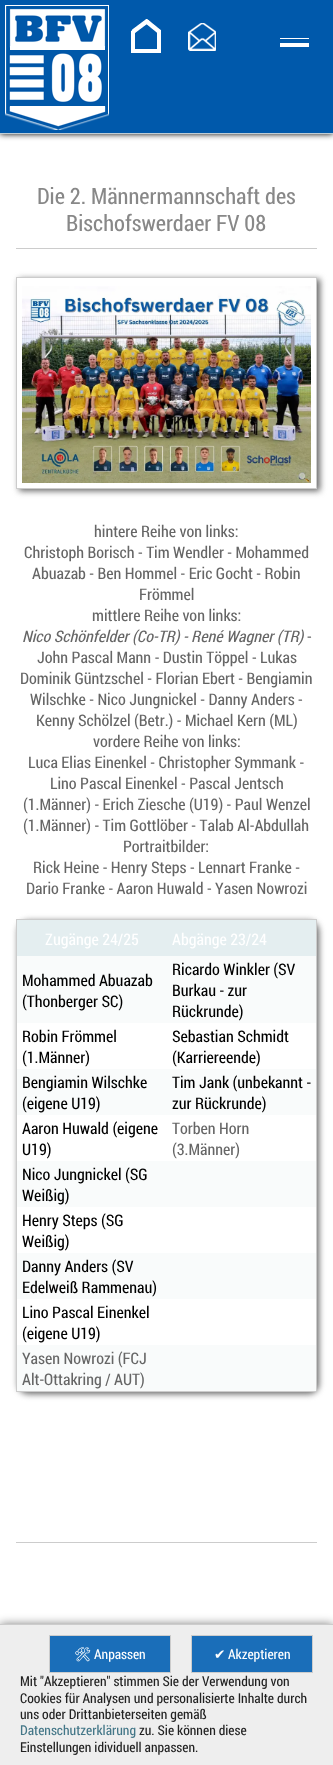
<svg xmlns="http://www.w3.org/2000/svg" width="333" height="1765">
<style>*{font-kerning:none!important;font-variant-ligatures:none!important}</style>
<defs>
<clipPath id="clip1"><path d="M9 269h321v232h-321zm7 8h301v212h-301z" clip-rule="evenodd"/></clipPath>
</defs>
<rect width="100%" height="100%" fill="#fff"/>
<rect width="333" height="134" fill="#000" filter="blur(3px)"/>
<rect width="333" height="133" fill="#0059ab"/>
<rect y="133" width="333" height="1" fill="#becdd6"/>
<image x="5" y="5" width="104" height="125" href="media/1.png"/>
<image x="131" y="19" width="30" height="34" href="media/2.png"/>
<image x="188" y="23" width="28" height="28" href="media/3.png"/>
<image x="280" y="38" width="29" height="9" href="media/4.png"/>
<text x="37" y="204" style="font-family:Roboto Condensed;font-size:22.4px;fill:#888">Die 2. Männermannschaft des</text>
<text x="66" y="231" style="font-family:Roboto Condensed;font-size:22.4px;fill:#888">Bischofswerdaer FV 08</text>
<rect x="16" y="248" width="301" height="1" fill="#ccc"/>
<g clip-path="url(#clip1)">
<rect x="19" y="279" width="301" height="212" fill="#666" filter="blur(3px)"/>
</g>
<rect x="16.5" y="277.5" width="300" height="211" fill="none" stroke="#ccc"/>
<image x="22" y="286" width="289" height="197" href="media/5.png"/>
<text x="94" y="537" style="font-family:Roboto Condensed;font-size:16px;fill:#666">hintere Reihe von links:</text>
<text x="24" y="558" style="font-family:Roboto Condensed;font-size:16px;fill:#666">Christoph Borisch - Tim Wendler - Mohammed</text>
<text x="32" y="579" style="font-family:Roboto Condensed;font-size:16px;fill:#666">Abuazab - Ben Hommel - Eric Gocht - Robin</text>
<text x="139" y="600" style="font-family:Roboto Condensed;font-size:16px;fill:#666">Frömmel</text>
<text x="92" y="621" style="font-family:Roboto Condensed;font-size:16px;fill:#666">mittlere Reihe von links:</text>
<text x="22" y="642" style="font-family:Roboto Condensed;font-size:16px;font-style:italic;fill:#666">Nico Schönfelder (Co-TR) - René Wagner (TR)</text>
<text x="307" y="642" style="font-family:Roboto Condensed;font-size:16px;fill:#666">-</text>
<text x="37" y="663" style="font-family:Roboto Condensed;font-size:16px;fill:#666">John Pascal Mann - Dustin Töppel - Lukas</text>
<text x="20" y="684" style="font-family:Roboto Condensed;font-size:16px;fill:#666">Dominik Güntzschel - Florian Ebert - Bengiamin</text>
<text x="30" y="705" style="font-family:Roboto Condensed;font-size:16px;fill:#666">Wilschke - Nico Jungnickel - Danny Anders -</text>
<text x="36" y="726" style="font-family:Roboto Condensed;font-size:16px;fill:#666">Kenny Schölzel (Betr.) - Michael Kern (ML)</text>
<text x="93" y="747" style="font-family:Roboto Condensed;font-size:16px;fill:#666">vordere Reihe von links:</text>
<text x="28" y="768" style="font-family:Roboto Condensed;font-size:16px;fill:#666">Luca Elias Einenkel - Christopher Symmank -</text>
<text x="50" y="789" style="font-family:Roboto Condensed;font-size:16px;fill:#666">Lino Pascal Einenkel - Pascal Jentsch</text>
<text x="23" y="810" style="font-family:Roboto Condensed;font-size:16px;fill:#666">(1.Männer) - Erich Ziesche (U19) - Paul Wenzel</text>
<text x="23" y="831" style="font-family:Roboto Condensed;font-size:16px;fill:#666">(1.Männer) - Tim Gottlöber - Talab Al-Abdullah</text>
<text x="123" y="852" style="font-family:Roboto Condensed;font-size:16px;fill:#666">Portraitbilder:</text>
<text x="33" y="873" style="font-family:Roboto Condensed;font-size:16px;fill:#666">Rick Heine - Henry Steps - Lennart Franke -</text>
<text x="26" y="894" style="font-family:Roboto Condensed;font-size:16px;fill:#666">Dario Franke - Aaron Huwald - Yasen Nowrozi</text>
<rect x="18" y="921" width="301" height="473" rx="10" fill="#666" filter="blur(3px)"/>
<rect x="17" y="956" width="299" height="343" fill="#f9fbfb"/>
<rect x="16" y="919" width="301" height="1" fill="#ccc"/>
<rect x="316" y="919" width="1" height="473" fill="#ccc"/>
<rect x="16" y="1391" width="301" height="1" fill="#ccc"/>
<rect x="16" y="919" width="1" height="473" fill="#ccc"/>
<rect x="17" y="920" width="299" height="36" fill="#e4eef0"/>
<text x="45" y="945" style="font-family:Roboto Condensed;font-size:16px;fill:#fff">Zugänge 24/25</text>
<text x="172" y="945" style="font-family:Roboto Condensed;font-size:16px;fill:#fff">Abgänge 23/24</text>
<text x="22" y="986" style="font-family:Roboto Condensed;font-size:16px;fill:#000">Mohammed Abuazab</text>
<text x="22" y="1007" style="font-family:Roboto Condensed;font-size:16px;fill:#000">(Thonberger SC)</text>
<text x="172" y="975" style="font-family:Roboto Condensed;font-size:16px;fill:#000">Ricardo Winkler (SV</text>
<text x="172" y="996" style="font-family:Roboto Condensed;font-size:16px;fill:#000">Burkau - zur</text>
<text x="172" y="1017" style="font-family:Roboto Condensed;font-size:16px;fill:#000">Rückrunde)</text>
<rect x="17" y="1023" width="299" height="46" fill="#fff"/>
<text x="22" y="1042" style="font-family:Roboto Condensed;font-size:16px;fill:#000">Robin Frömmel</text>
<text x="22" y="1063" style="font-family:Roboto Condensed;font-size:16px;fill:#000">(1.Männer)</text>
<text x="172" y="1042" style="font-family:Roboto Condensed;font-size:16px;fill:#000">Sebastian Schmidt</text>
<text x="172" y="1063" style="font-family:Roboto Condensed;font-size:16px;fill:#000">(Karriereende)</text>
<text x="22" y="1088" style="font-family:Roboto Condensed;font-size:16px;fill:#000">Bengiamin Wilschke</text>
<text x="22" y="1109" style="font-family:Roboto Condensed;font-size:16px;fill:#000">(eigene U19)</text>
<text x="172" y="1088" style="font-family:Roboto Condensed;font-size:16px;fill:#000">Tim Jank (unbekannt -</text>
<text x="172" y="1109" style="font-family:Roboto Condensed;font-size:16px;fill:#000">zur Rückrunde)</text>
<rect x="17" y="1115" width="299" height="46" fill="#fff"/>
<text x="22" y="1134" style="font-family:Roboto Condensed;font-size:16px;fill:#000">Aaron Huwald (eigene</text>
<text x="22" y="1155" style="font-family:Roboto Condensed;font-size:16px;fill:#000">U19)</text>
<text x="172" y="1134" style="font-family:Roboto Condensed;font-size:16px;fill:#666">Torben Horn</text>
<text x="172" y="1155" style="font-family:Roboto Condensed;font-size:16px;fill:#666">(3.Männer)</text>
<text x="22" y="1180" style="font-family:Roboto Condensed;font-size:16px;fill:#000">Nico Jungnickel (SG</text>
<text x="22" y="1201" style="font-family:Roboto Condensed;font-size:16px;fill:#000">Weißig)</text>
<rect x="17" y="1207" width="299" height="46" fill="#fff"/>
<text x="22" y="1226" style="font-family:Roboto Condensed;font-size:16px;fill:#000">Henry Steps (SG</text>
<text x="22" y="1247" style="font-family:Roboto Condensed;font-size:16px;fill:#000">Weißig)</text>
<text x="22" y="1272" style="font-family:Roboto Condensed;font-size:16px;fill:#000">Danny Anders (SV</text>
<text x="22" y="1293" style="font-family:Roboto Condensed;font-size:16px;fill:#000">Edelweiß Rammenau)</text>
<rect x="17" y="1299" width="299" height="46" fill="#fff"/>
<text x="22" y="1318" style="font-family:Roboto Condensed;font-size:16px;fill:#000">Lino Pascal Einenkel</text>
<text x="22" y="1339" style="font-family:Roboto Condensed;font-size:16px;fill:#000">(eigene U19)</text>
<rect x="17" y="1345" width="299" height="46" fill="#f9fbfb"/>
<text x="22" y="1364" style="font-family:Roboto Condensed;font-size:16px;fill:#666">Yasen Nowrozi (FCJ</text>
<text x="22" y="1385" style="font-family:Roboto Condensed;font-size:16px;fill:#666">Alt-Ottakring / AUT)</text>
<rect x="16" y="1542" width="301" height="1" fill="#ccc"/>
<rect y="1624" width="333" height="141" fill="#00000080" filter="blur(5px)"/>
<rect y="1625" width="333" height="140" fill="#eee"/>
<rect y="1624" width="333" height="1" fill="#ccc"/>
<rect x="49.5" y="1635.5" width="121" height="37" fill="#1a6eb9" stroke="#ccc"/>
<text x="74" y="1659" style="font-family:Noto Emoji;font-size:13.6px;font-weight:500;fill:#fff">🛠</text>
<text x="94" y="1659" style="font-family:Roboto Condensed;font-size:13.6px;fill:#fff">Anpassen</text>
<rect x="191.5" y="1635.5" width="121" height="37" fill="#1a6eb9" stroke="#ccc"/>
<text x="214" y="1659" style="font-family:DejaVu Sans;font-size:13.6px;fill:#fff">✔</text>
<text x="228" y="1659" style="font-family:Roboto Condensed;font-size:13.6px;fill:#fff">Akzeptieren</text>
<text x="20" y="1686" style="font-family:Roboto Condensed;font-size:13.6px;fill:#222">Mit "Akzeptieren" stimmen Sie der Verwendung von</text>
<text x="20" y="1703" style="font-family:Roboto Condensed;font-size:13.6px;fill:#222">Cookies für Analysen und personalisierte Inhalte durch</text>
<text x="20" y="1719" style="font-family:Roboto Condensed;font-size:13.6px;fill:#222">uns oder Drittanbieterseiten gemäß</text>
<text x="20" y="1735" style="font-family:Roboto Condensed;font-size:13.6px;fill:#478">Datenschutzerklärung</text>
<text x="139" y="1735" style="font-family:Roboto Condensed;font-size:13.6px;fill:#222">zu. Sie können diese</text>
<text x="20" y="1752" style="font-family:Roboto Condensed;font-size:13.6px;fill:#222">Einstellungen idividuell anpassen.</text>
</svg>
